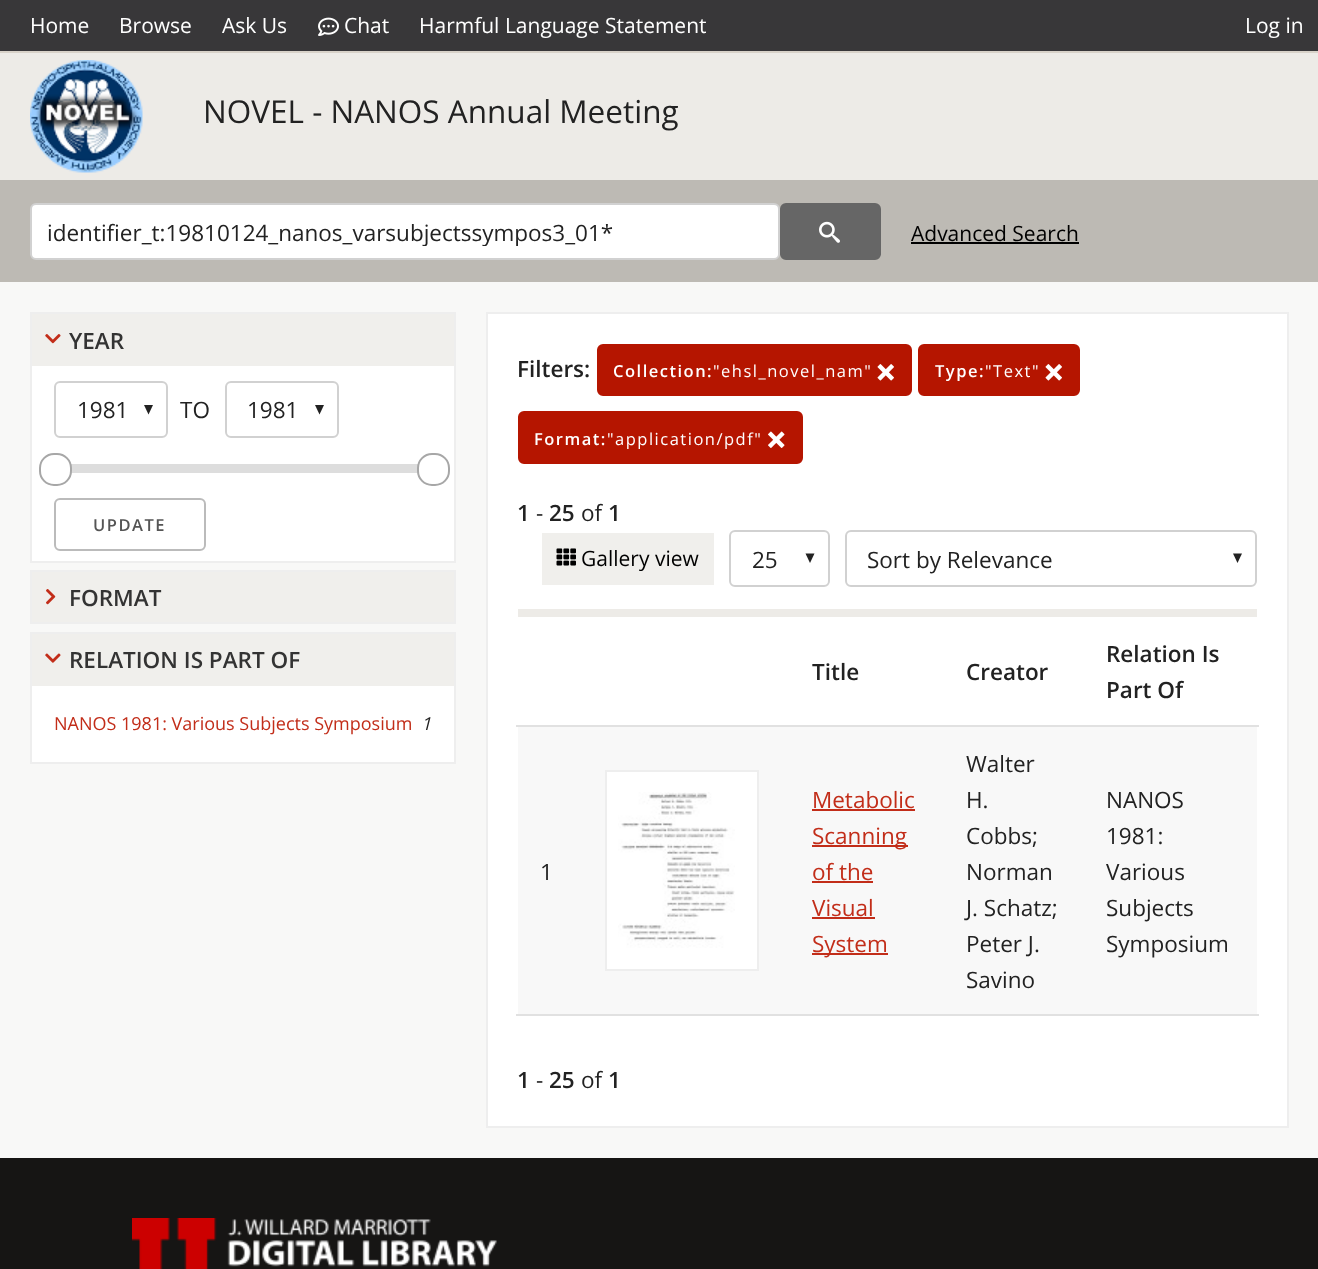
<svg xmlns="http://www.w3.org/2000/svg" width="1318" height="1269">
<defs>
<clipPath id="clip1"><rect x="47" y="216" width="717" height="30"/></clipPath>
</defs>
<rect width="100%" height="100%" fill="#f8f8f7"/>
<rect width="1318" height="51" fill="#383739"/>
<text x="30" y="33" style="font-family:Open Sans;font-size:21px;fill:#fff">Home</text>
<text x="119" y="33" style="font-family:Open Sans;font-size:21px;fill:#fff">Browse</text>
<text x="222" y="33" style="font-family:Open Sans;font-size:21px;fill:#fff">Ask Us</text>
<image x="318" y="17" width="21" height="19" href="media/1.png"/>
<text x="344" y="33" style="font-family:Open Sans;font-size:21px;fill:#fff">Chat</text>
<text x="419" y="33" style="font-family:Open Sans;font-size:21px;fill:#fff">Harmful Language Statement</text>
<text x="1245" y="33" style="font-family:Open Sans;font-size:21px;fill:#fff">Log in</text>
<rect y="53" width="1318" height="127" fill="#edebe7"/>
<rect y="51" width="1318" height="2" fill="#d8d2c9"/>
<image x="30" y="60" width="113" height="113" href="media/2.png"/>
<text x="203" y="123" style="font-family:Open Sans;font-size:31.5px;fill:#222">NOVEL - NANOS Annual Meeting</text>
<rect y="180" width="1318" height="102" fill="#bdbab4"/>
<rect x="31" y="204" width="748" height="55" rx="5" fill="#fff" stroke="#d1d1d1" stroke-width="2"/>
<g clip-path="url(#clip1)">
<text x="47" y="241" style="font-family:Open Sans;font-size:22.5px;fill:#222">identifier_t:19810124_nanos_varsubjectssympos3_01*</text>
</g>
<rect x="781" y="204" width="99" height="55" rx="5" fill="#666" stroke="#666" stroke-width="2"/>
<image x="819" y="221" width="21" height="22" href="media/3.png"/>
<text x="911" y="241" style="font-family:Open Sans;font-size:21px;fill:#000">Advanced Search</text>
<rect x="911" y="242" width="168" height="2" fill="#000"/>
<rect x="32" y="366" width="422" height="195" fill="#fff"/>
<rect x="31" y="313" width="424" height="249" fill="none" stroke="#eee" stroke-width="2"/>
<rect x="32" y="314" width="422" height="52" fill="#f0efec"/>
<image x="45" y="334" width="16" height="10" href="media/4.png"/>
<text x="69" y="349" style="font-family:Open Sans;font-size:22.5px;font-weight:600;fill:#333">YEAR</text>
<path d="M144 405l4.5 9.5l4.5-9.5" fill="#222"/>
<rect x="55" y="382" width="112" height="55" rx="5" fill="none" stroke="#d1d1d1" stroke-width="2"/>
<text x="77" y="418" style="font-family:Open Sans;font-size:22.5px;fill:#222">1981</text>
<text x="180" y="418" style="font-family:Open Sans;font-size:22.5px;fill:#222">TO</text>
<path d="M315 405l4.5 9.5l4.5-9.5" fill="#222"/>
<rect x="226" y="382" width="112" height="55" rx="5" fill="none" stroke="#d1d1d1" stroke-width="2"/>
<text x="247" y="418" style="font-family:Open Sans;font-size:22.5px;fill:#222">1981</text>
<rect x="71" y="464" width="347" height="9" fill="#ddd"/>
<rect x="40" y="454" width="31" height="31" rx="14" fill="#fff" stroke="#a7a7a7" stroke-width="2"/>
<rect x="418" y="454" width="31" height="31" rx="14" fill="#fff" stroke="#a7a7a7" stroke-width="2"/>
<rect x="55" y="499" width="150" height="51" rx="5" fill="none" stroke="#bbb" stroke-width="2"/>
<text x="93" y="531" style="font-family:Open Sans;font-size:16.5px;font-weight:600;letter-spacing:1.5px;fill:#555">UPDATE</text>
<rect x="31" y="571" width="424" height="52" fill="none" stroke="#eee" stroke-width="2"/>
<rect x="32" y="572" width="422" height="50" fill="#f0efec"/>
<image x="46" y="589" width="10" height="16" href="media/5.png"/>
<text x="69" y="606" style="font-family:Open Sans;font-size:22.5px;font-weight:600;fill:#333">FORMAT</text>
<rect x="32" y="686" width="422" height="76" fill="#fff"/>
<rect x="31" y="633" width="424" height="130" fill="none" stroke="#eee" stroke-width="2"/>
<rect x="32" y="634" width="422" height="52" fill="#f0efec"/>
<image x="45" y="653" width="16" height="10" href="media/6.png"/>
<text x="69" y="668" style="font-family:Open Sans;font-size:22.5px;font-weight:600;fill:#333">RELATION IS PART OF</text>
<text x="54" y="730" style="font-family:Open Sans;font-size:18px;fill:#c22d19">NANOS 1981: Various Subjects Symposium</text>
<text x="421" y="730" style="font-family:Open Sans;font-size:18px;font-style:italic;fill:#222">1</text>
<rect x="487" y="313" width="801" height="814" fill="#fff" stroke="#eee" stroke-width="2"/>
<text x="517" y="377" style="font-family:Open Sans;font-size:22.5px;font-weight:600;fill:#222">Filters:</text>
<rect x="598" y="345" width="313" height="50" rx="5" fill="#b51500" stroke="#b51500" stroke-width="2"/>
<text x="613" y="377" style="font-family:Open Sans;font-size:16.5px;font-weight:600;letter-spacing:1.5px;fill:#fff">Collection:</text>
<text x="713" y="377" style="font-family:Open Sans;font-size:16.5px;letter-spacing:1.5px;fill:#fff">"ehsl_novel_nam"</text>
<image x="877" y="364" width="17" height="17" href="media/7.png"/>
<rect x="919" y="345" width="160" height="50" rx="5" fill="#b51500" stroke="#b51500" stroke-width="2"/>
<text x="935" y="377" style="font-family:Open Sans;font-size:16.5px;font-weight:600;letter-spacing:1.5px;fill:#fff">Type:</text>
<text x="985" y="377" style="font-family:Open Sans;font-size:16.5px;letter-spacing:1.5px;fill:#fff">"Text"</text>
<image x="1045" y="364" width="17" height="17" href="media/7.png"/>
<rect x="519" y="412" width="283" height="51" rx="5" fill="#b51500" stroke="#b51500" stroke-width="2"/>
<text x="534" y="445" style="font-family:Open Sans;font-size:16.5px;font-weight:600;letter-spacing:1.5px;fill:#fff">Format:</text>
<text x="607" y="445" style="font-family:Open Sans;font-size:16.5px;letter-spacing:1.5px;fill:#fff">"application/pdf"</text>
<image x="768" y="431" width="17" height="17" href="media/8.png"/>
<rect x="518" y="609" width="739" height="8" fill="#edebe7"/>
<text x="517" y="521" style="font-family:Open Sans;font-size:22.5px;font-weight:600;fill:#222">1</text>
<text x="536" y="521" style="font-family:Open Sans;font-size:22.5px;fill:#222">-</text>
<text x="549" y="521" style="font-family:Open Sans;font-size:22.5px;font-weight:600;fill:#222">25</text>
<text x="581" y="521" style="font-family:Open Sans;font-size:22.5px;fill:#222">of</text>
<text x="608" y="521" style="font-family:Open Sans;font-size:22.5px;font-weight:600;fill:#222">1</text>
<rect x="542" y="533" width="172" height="52" fill="#f0efec"/>
<image x="556" y="548" width="20" height="18" href="media/9.png"/>
<text x="581" y="566" style="font-family:Open Sans;font-size:21px;fill:#000">Gallery view</text>
<path d="M805.5 553.5l4.5 9.5l4.5-9.5" fill="#222"/>
<rect x="730" y="531" width="99" height="55" rx="5" fill="none" stroke="#d1d1d1" stroke-width="2"/>
<text x="752" y="568" style="font-family:Open Sans;font-size:22.5px;fill:#222">25</text>
<path d="M1233 553.5l4.5 9.5l4.5-9.5" fill="#222"/>
<rect x="846" y="531" width="410" height="55" rx="5" fill="none" stroke="#d1d1d1" stroke-width="2"/>
<text x="867" y="568" style="font-family:Open Sans;font-size:22.5px;fill:#222">Sort by Relevance</text>
<text x="812" y="680" style="font-family:Open Sans;font-size:22.5px;font-weight:600;fill:#222">Title</text>
<text x="966" y="680" style="font-family:Open Sans;font-size:22.5px;font-weight:600;fill:#222">Creator</text>
<rect x="516" y="725" width="743" height="2" fill="#e1e1e1"/>
<text x="1106" y="662" style="font-family:Open Sans;font-size:22.5px;font-weight:600;fill:#222">Relation Is</text>
<text x="1106" y="698" style="font-family:Open Sans;font-size:22.5px;font-weight:600;fill:#222">Part Of</text>
<rect x="518" y="727" width="739" height="287" fill="#f8f8f8"/>
<text x="540" y="880" style="font-family:Open Sans;font-size:22.5px;fill:#222">1</text>
<rect x="606" y="771" width="152" height="199" fill="#fff" stroke="#eee" stroke-width="2"/>
<image x="618" y="792" width="117" height="156" href="media/10.png"/>
<text x="812" y="808" style="font-family:Open Sans;font-size:22.5px;fill:#c22d19">Metabolic</text>
<rect x="812" y="809" width="103" height="2" fill="#c22d19"/>
<rect x="812" y="845" width="96" height="2" fill="#c22d19"/>
<text x="812" y="844" style="font-family:Open Sans;font-size:22.5px;fill:#c22d19">Scanning</text>
<text x="812" y="880" style="font-family:Open Sans;font-size:22.5px;fill:#c22d19">of the</text>
<rect x="812" y="881" width="61" height="2" fill="#c22d19"/>
<text x="812" y="916" style="font-family:Open Sans;font-size:22.5px;fill:#c22d19">Visual</text>
<rect x="812" y="917" width="63" height="2" fill="#c22d19"/>
<rect x="812" y="953" width="76" height="2" fill="#c22d19"/>
<text x="812" y="952" style="font-family:Open Sans;font-size:22.5px;fill:#c22d19">System</text>
<text x="966" y="772" style="font-family:Open Sans;font-size:22.5px;fill:#222">Walter</text>
<text x="966" y="808" style="font-family:Open Sans;font-size:22.5px;fill:#222">H.</text>
<text x="966" y="844" style="font-family:Open Sans;font-size:22.5px;fill:#222">Cobbs;</text>
<text x="966" y="880" style="font-family:Open Sans;font-size:22.5px;fill:#222">Norman</text>
<text x="966" y="916" style="font-family:Open Sans;font-size:22.5px;fill:#222">J. Schatz;</text>
<text x="966" y="952" style="font-family:Open Sans;font-size:22.5px;fill:#222">Peter J.</text>
<text x="966" y="988" style="font-family:Open Sans;font-size:22.5px;fill:#222">Savino</text>
<rect x="516" y="1014" width="743" height="2" fill="#e1e1e1"/>
<text x="1106" y="808" style="font-family:Open Sans;font-size:22.5px;fill:#222">NANOS</text>
<text x="1106" y="844" style="font-family:Open Sans;font-size:22.5px;fill:#222">1981:</text>
<text x="1106" y="880" style="font-family:Open Sans;font-size:22.5px;fill:#222">Various</text>
<text x="1106" y="916" style="font-family:Open Sans;font-size:22.5px;fill:#222">Subjects</text>
<text x="1106" y="952" style="font-family:Open Sans;font-size:22.5px;fill:#222">Symposium</text>
<text x="517" y="1088" style="font-family:Open Sans;font-size:22.5px;font-weight:600;fill:#222">1</text>
<text x="536" y="1088" style="font-family:Open Sans;font-size:22.5px;fill:#222">-</text>
<text x="549" y="1088" style="font-family:Open Sans;font-size:22.5px;font-weight:600;fill:#222">25</text>
<text x="581" y="1088" style="font-family:Open Sans;font-size:22.5px;fill:#222">of</text>
<text x="608" y="1088" style="font-family:Open Sans;font-size:22.5px;font-weight:600;fill:#222">1</text>
<rect y="1158" width="1318" height="111" fill="#161514"/>
<image x="132" y="1218" width="365" height="51" href="media/11.png"/>
</svg>
